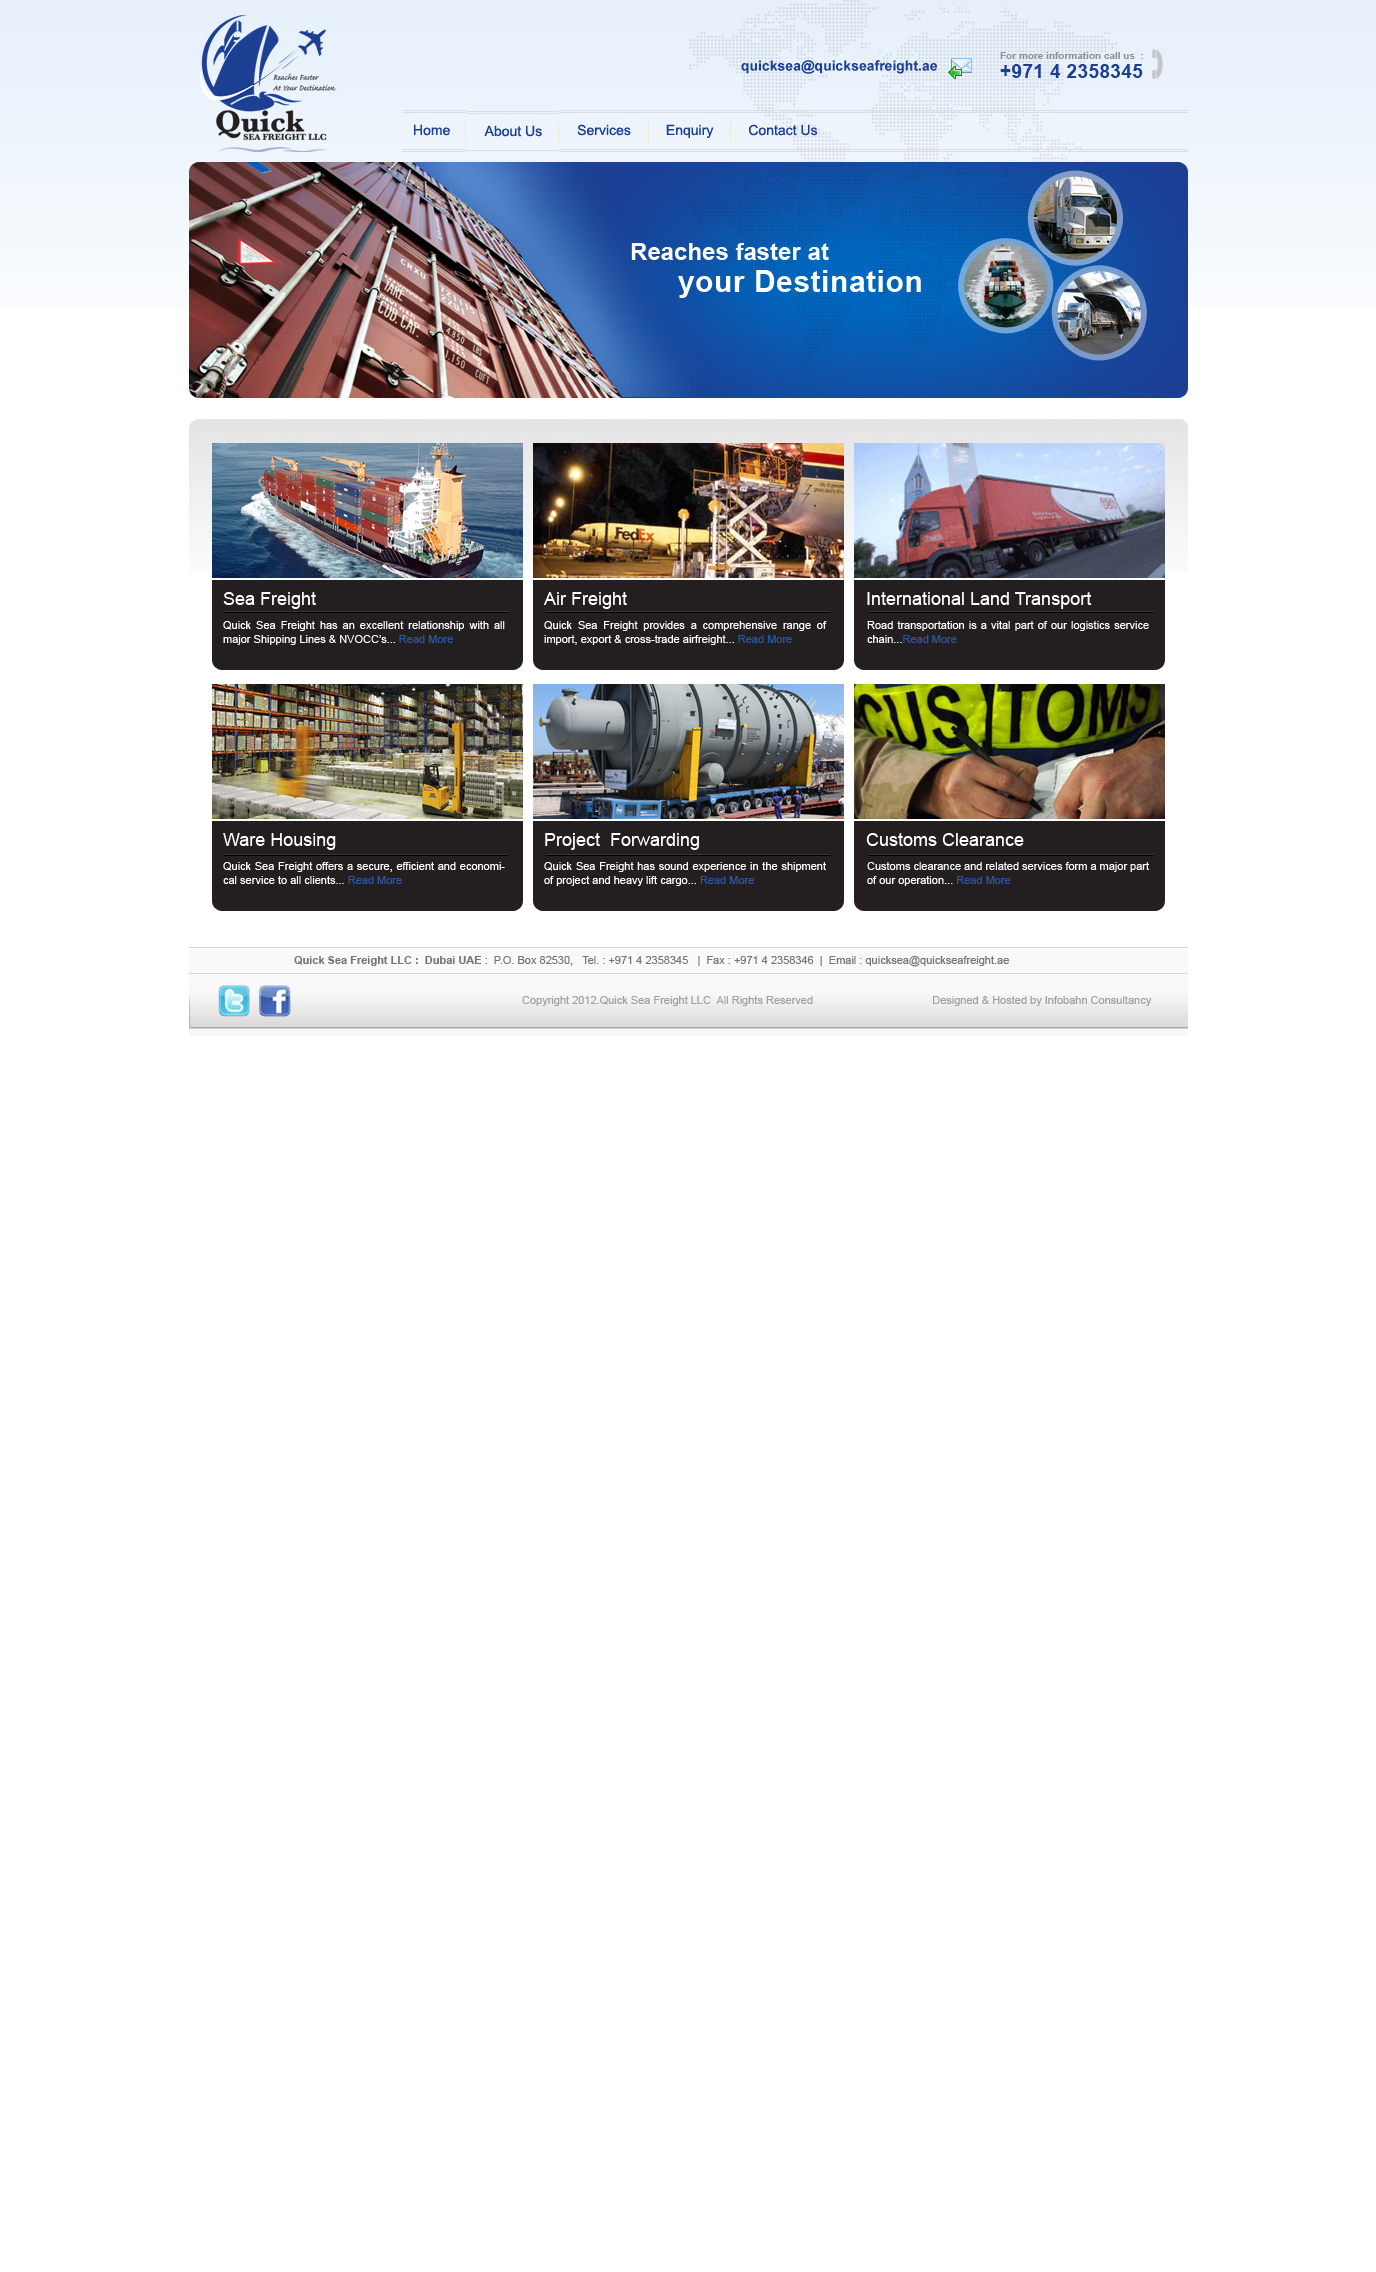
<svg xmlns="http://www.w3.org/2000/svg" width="1376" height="2272">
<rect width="100%" height="100%" fill="#fff"/>
<image x="0" y="0" width="1376" height="307" href="media/1.png"/>
<image x="200" y="15" width="203" height="137" href="media/2.png"/>
<image x="689" y="0" width="474" height="110" href="media/3.png"/>
<image x="403" y="110" width="63" height="42" href="media/4.png"/>
<image x="466" y="111" width="93" height="40" href="media/5.png"/>
<image x="559" y="110" width="85" height="42" href="media/6.png"/>
<image x="644" y="110" width="86" height="42" href="media/7.png"/>
<image x="730" y="110" width="96" height="42" href="media/8.png"/>
<image x="826" y="110" width="362" height="42" href="media/9.png"/>
<image x="797" y="152" width="295" height="10" href="media/10.png"/>
<image x="189" y="162" width="999" height="236" href="media/11.png"/>
<image x="189" y="419" width="999" height="24" href="media/12.png"/>
<image x="189" y="443" width="23" height="128" href="media/13.png"/>
<image x="523" y="443" width="331" height="128" href="media/14.png"/>
<image x="212" y="443" width="311" height="227" href="media/15.png"/>
<image x="533" y="443" width="311" height="227" href="media/16.png"/>
<image x="854" y="443" width="311" height="227" href="media/17.png"/>
<image x="212" y="684" width="311" height="227" href="media/18.png"/>
<image x="533" y="684" width="311" height="227" href="media/19.png"/>
<image x="854" y="684" width="311" height="227" href="media/20.png"/>
<image x="1165" y="443" width="23" height="128" href="media/21.png"/>
<image x="189" y="947" width="999" height="79" href="media/22.png"/>
<image x="189" y="1026" width="999" height="10" href="media/23.png"/>
</svg>
